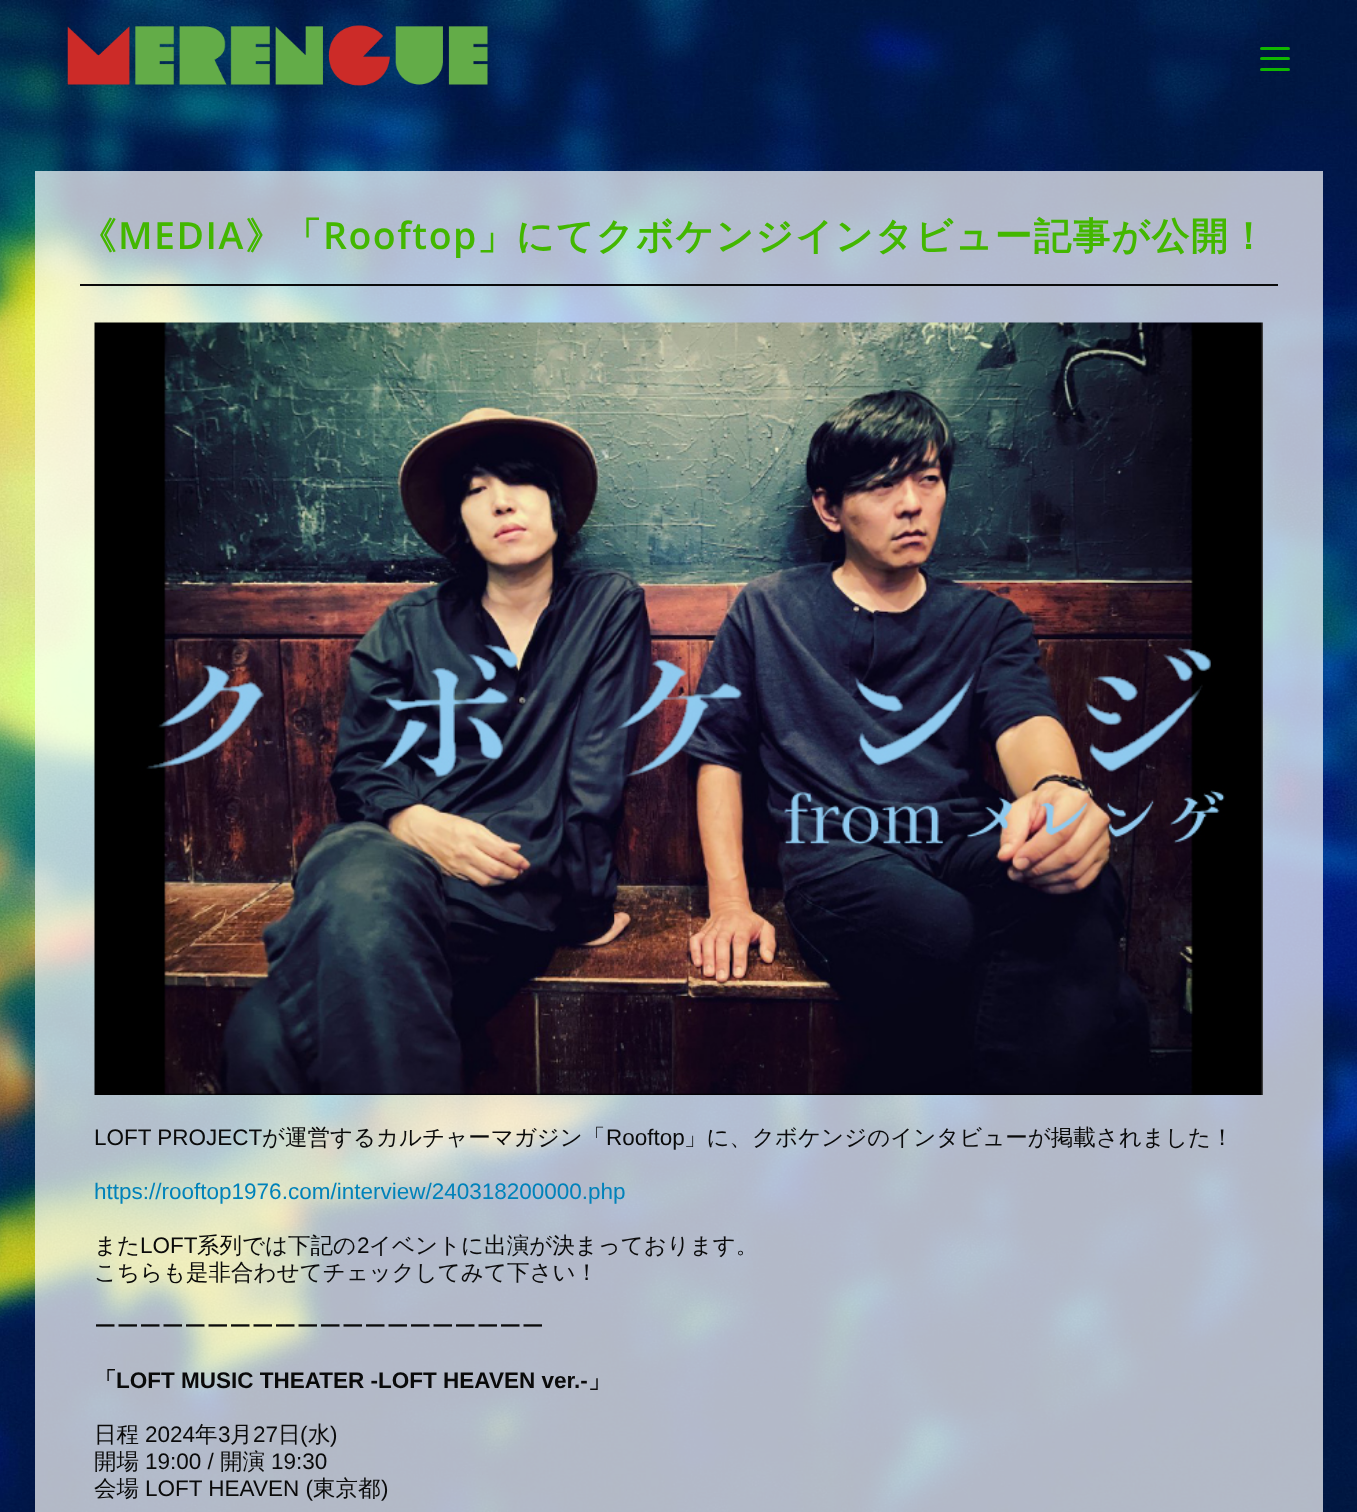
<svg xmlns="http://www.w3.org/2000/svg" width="1357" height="1512">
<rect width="100%" height="100%" fill="#fff"/>
<image x="0" y="0" width="1357" height="1512" href="media/1.png"/>
<image x="67" y="25" width="421" height="61" href="media/2.png"/>
<rect x="1260" y="57" width="30" height="3" rx="1.5" fill="#0fb700"/>
<rect x="1260" y="47" width="30" height="3" rx="1.5" fill="#0fb700"/>
<rect x="1260" y="68" width="30" height="3" rx="1.5" fill="#0fb700"/>
<rect x="35" y="171" width="1288" height="1341" fill="#ffffffb3"/>
<rect x="80" y="284" width="1198" height="2" fill="#0a0a0a"/>
<text x="79" y="249" style="font-family:WenQuanYi Zen Hei;font-size:37.5px;font-weight:bold;letter-spacing:1.5px;fill:#43b700">《</text>
<text x="118" y="249" style="font-family:Open Sans;font-size:37.5px;font-weight:600;letter-spacing:1.5px;fill:#43b700">MEDIA</text>
<text x="245" y="249" style="font-family:WenQuanYi Zen Hei;font-size:37.5px;font-weight:bold;letter-spacing:1.5px;fill:#43b700">》「</text>
<text x="323" y="249" style="font-family:Open Sans;font-size:37.5px;font-weight:600;letter-spacing:1.5px;fill:#43b700">Rooftop</text>
<text x="477" y="249" style="font-family:WenQuanYi Zen Hei;font-size:37.5px;font-weight:bold;letter-spacing:1.5px;fill:#43b700">」にてクボケンジインタビュー記事が公開！</text>
<image x="94" y="322" width="1169" height="773" href="media/3.png"/>
<text x="94" y="1145" style="font-family:Liberation Sans;font-size:22.5px;fill:#0a0a0a">LOFT PROJECT</text>
<text x="262" y="1145" style="font-family:WenQuanYi Zen Hei;font-size:22.5px;font-weight:500;fill:#0a0a0a">が運営するカルチャーマガジン「</text>
<text x="606" y="1145" style="font-family:Liberation Sans;font-size:22.5px;fill:#0a0a0a">Rooftop</text>
<text x="684" y="1145" style="font-family:WenQuanYi Zen Hei;font-size:22.5px;font-weight:500;fill:#0a0a0a">」に、クボケンジのインタビューが掲載されました！</text>
<text x="94" y="1199" style="font-family:Liberation Sans;font-size:22.5px;fill:#0082ba">https://rooftop1976.com/interview/240318200000.php</text>
<text x="94" y="1253" style="font-family:WenQuanYi Zen Hei;font-size:22.5px;font-weight:500;fill:#0a0a0a">また</text>
<text x="140" y="1253" style="font-family:Liberation Sans;font-size:22.5px;fill:#0a0a0a">LOFT</text>
<text x="197" y="1253" style="font-family:WenQuanYi Zen Hei;font-size:22.5px;font-weight:500;fill:#0a0a0a">系列では下記の</text>
<text x="357" y="1253" style="font-family:Liberation Sans;font-size:22.5px;fill:#0a0a0a">2</text>
<text x="369" y="1253" style="font-family:WenQuanYi Zen Hei;font-size:22.5px;font-weight:500;fill:#0a0a0a">イベントに出演が決まっております。</text>
<text x="94" y="1280" style="font-family:WenQuanYi Zen Hei;font-size:22.5px;font-weight:500;fill:#0a0a0a">こちらも是非合わせてチェックしてみて下さい！</text>
<text x="94" y="1334" style="font-family:WenQuanYi Zen Hei;font-size:22.5px;font-weight:500;fill:#0a0a0a">ーーーーーーーーーーーーーーーーーーーー</text>
<text x="94" y="1388" style="font-family:WenQuanYi Zen Hei;font-size:22.5px;font-weight:bold;fill:#0a0a0a">「</text>
<text x="116" y="1388" style="font-family:Liberation Sans;font-size:22.5px;font-weight:bold;fill:#0a0a0a">LOFT MUSIC THEATER -LOFT HEAVEN ver.-</text>
<text x="588" y="1388" style="font-family:WenQuanYi Zen Hei;font-size:22.5px;font-weight:bold;fill:#0a0a0a">」</text>
<text x="94" y="1442" style="font-family:WenQuanYi Zen Hei;font-size:22.5px;font-weight:500;fill:#0a0a0a">日程</text>
<text x="145" y="1442" style="font-family:Liberation Sans;font-size:22.5px;fill:#0a0a0a">2024</text>
<text x="195" y="1442" style="font-family:WenQuanYi Zen Hei;font-size:22.5px;font-weight:500;fill:#0a0a0a">年</text>
<text x="218" y="1442" style="font-family:Liberation Sans;font-size:22.5px;fill:#0a0a0a">3</text>
<text x="230" y="1442" style="font-family:WenQuanYi Zen Hei;font-size:22.5px;font-weight:500;fill:#0a0a0a">月</text>
<text x="253" y="1442" style="font-family:Liberation Sans;font-size:22.5px;fill:#0a0a0a">27</text>
<text x="278" y="1442" style="font-family:WenQuanYi Zen Hei;font-size:22.5px;font-weight:500;fill:#0a0a0a">日</text>
<text x="300" y="1442" style="font-family:Liberation Sans;font-size:22.5px;fill:#0a0a0a">(</text>
<text x="308" y="1442" style="font-family:WenQuanYi Zen Hei;font-size:22.5px;font-weight:500;fill:#0a0a0a">水</text>
<text x="330" y="1442" style="font-family:Liberation Sans;font-size:22.5px;fill:#0a0a0a">)</text>
<text x="94" y="1469" style="font-family:WenQuanYi Zen Hei;font-size:22.5px;font-weight:500;fill:#0a0a0a">開場</text>
<text x="145" y="1469" style="font-family:Liberation Sans;font-size:22.5px;fill:#0a0a0a">19:00 /</text>
<text x="220" y="1469" style="font-family:WenQuanYi Zen Hei;font-size:22.5px;font-weight:500;fill:#0a0a0a">開演</text>
<text x="271" y="1469" style="font-family:Liberation Sans;font-size:22.5px;fill:#0a0a0a">19:30</text>
<text x="94" y="1496" style="font-family:WenQuanYi Zen Hei;font-size:22.5px;font-weight:500;fill:#0a0a0a">会場</text>
<text x="145" y="1496" style="font-family:Liberation Sans;font-size:22.5px;fill:#0a0a0a">LOFT HEAVEN (</text>
<text x="313" y="1496" style="font-family:WenQuanYi Zen Hei;font-size:22.5px;font-weight:500;fill:#0a0a0a">東京都</text>
<text x="381" y="1496" style="font-family:Liberation Sans;font-size:22.5px;fill:#0a0a0a">)</text>
</svg>
